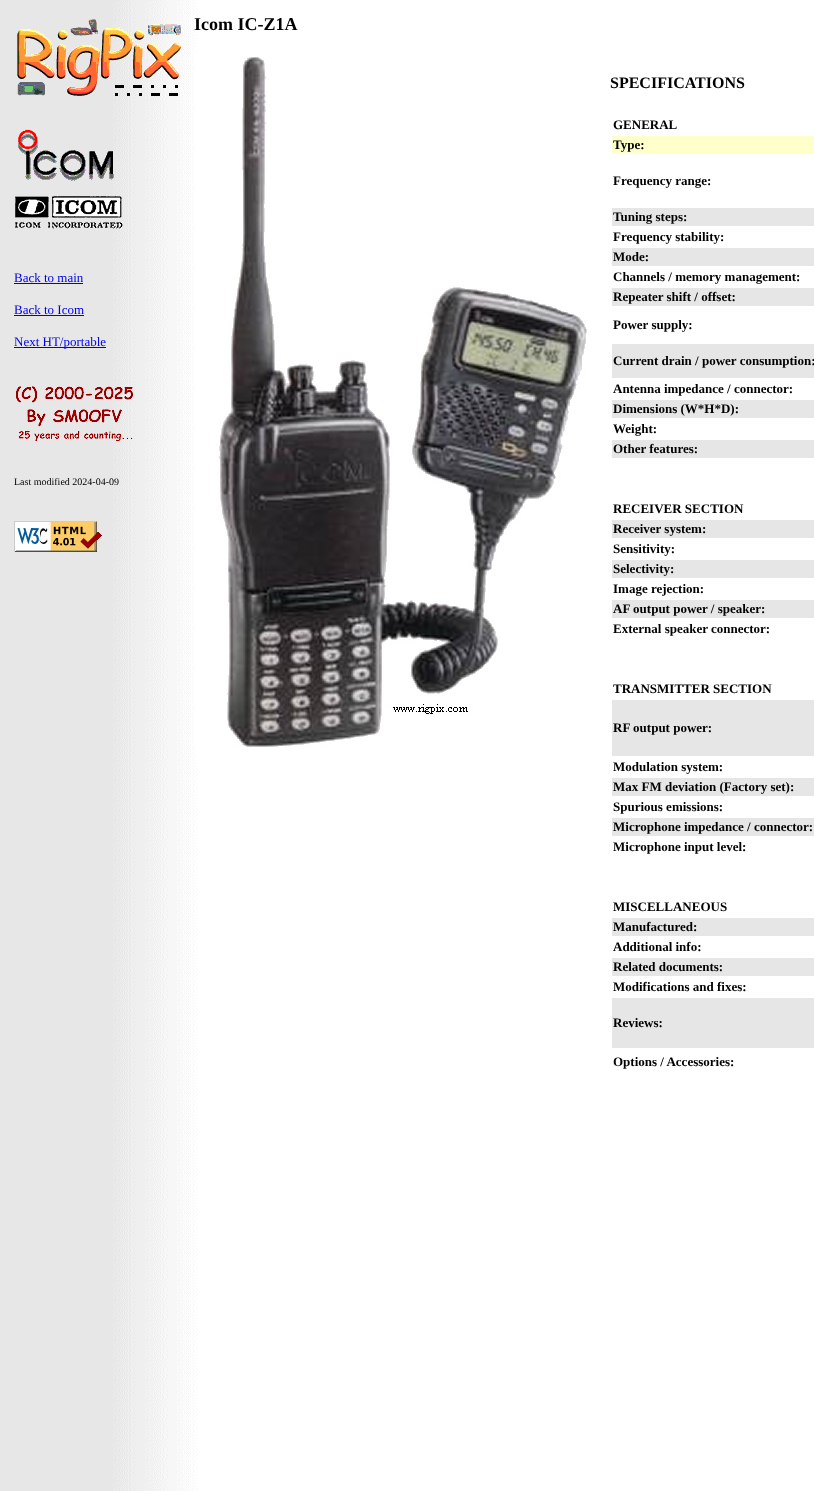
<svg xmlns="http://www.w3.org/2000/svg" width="814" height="1491">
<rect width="100%" height="100%" fill="#fff"/>
<image x="0" y="0" width="198" height="1491" href="media/1.png"/>
<image x="17" y="19" width="164" height="77" href="media/2.png"/>
<image x="15" y="129" width="108" height="100" href="media/3.png"/>
<text x="14" y="282" style="font-family:Liberation Serif;font-size:13px;fill:#00e">Back to main</text>
<rect x="14" y="283" width="69" height="1" fill="#00e"/>
<text x="14" y="314" style="font-family:Liberation Serif;font-size:13px;fill:#00e">Back to Icom</text>
<rect x="14" y="315" width="70" height="1" fill="#00e"/>
<rect x="14" y="347" width="92" height="1" fill="#00e"/>
<text x="14" y="346" style="font-family:Liberation Serif;font-size:13px;fill:#00e">Next HT/portable</text>
<image x="15" y="386" width="118" height="55" href="media/4.png"/>
<text x="14" y="485" style="font-family:Liberation Serif;font-size:10px;fill:#000">Last modified 2024-04-09</text>
<image x="14" y="521" width="88" height="31" href="media/5.png"/>
<text x="194" y="30" style="font-family:Liberation Serif;font-size:18px;font-weight:bold;fill:#000">Icom IC-Z1A</text>
<image x="194" y="54" width="393" height="699" href="media/6.png"/>
<text x="610" y="88" style="font-family:Liberation Serif;font-size:16px;font-weight:bold;fill:#000">SPECIFICATIONS</text>
<text x="613" y="129" style="font-family:Liberation Serif;font-size:13px;font-weight:bold;fill:#000">GENERAL</text>
<rect x="612" y="136" width="202" height="18" fill="#ffc"/>
<text x="613" y="149" style="font-family:Liberation Serif;font-size:13px;font-weight:bold;fill:#000">Type:</text>
<text x="613" y="185" style="font-family:Liberation Serif;font-size:13px;font-weight:bold;fill:#000">Frequency range:</text>
<rect x="612" y="208" width="202" height="18" fill="#e6e6e6"/>
<text x="613" y="221" style="font-family:Liberation Serif;font-size:13px;font-weight:bold;fill:#000">Tuning steps:</text>
<text x="613" y="241" style="font-family:Liberation Serif;font-size:13px;font-weight:bold;fill:#000">Frequency stability:</text>
<rect x="612" y="248" width="202" height="18" fill="#e6e6e6"/>
<text x="613" y="261" style="font-family:Liberation Serif;font-size:13px;font-weight:bold;fill:#000">Mode:</text>
<text x="613" y="281" style="font-family:Liberation Serif;font-size:13px;font-weight:bold;fill:#000">Channels / memory management:</text>
<rect x="612" y="288" width="202" height="18" fill="#e6e6e6"/>
<text x="613" y="301" style="font-family:Liberation Serif;font-size:13px;font-weight:bold;fill:#000">Repeater shift / offset:</text>
<text x="613" y="329" style="font-family:Liberation Serif;font-size:13px;font-weight:bold;fill:#000">Power supply:</text>
<rect x="612" y="344" width="202" height="34" fill="#e6e6e6"/>
<text x="613" y="365" style="font-family:Liberation Serif;font-size:13px;font-weight:bold;fill:#000">Current drain / power consumption:</text>
<text x="613" y="393" style="font-family:Liberation Serif;font-size:13px;font-weight:bold;fill:#000">Antenna impedance / connector:</text>
<rect x="612" y="400" width="202" height="18" fill="#e6e6e6"/>
<text x="613" y="413" style="font-family:Liberation Serif;font-size:13px;font-weight:bold;fill:#000">Dimensions (W*H*D):</text>
<text x="613" y="433" style="font-family:Liberation Serif;font-size:13px;font-weight:bold;fill:#000">Weight:</text>
<rect x="612" y="440" width="202" height="18" fill="#e6e6e6"/>
<text x="613" y="453" style="font-family:Liberation Serif;font-size:13px;font-weight:bold;fill:#000">Other features:</text>
<text x="613" y="513" style="font-family:Liberation Serif;font-size:13px;font-weight:bold;fill:#000">RECEIVER SECTION</text>
<rect x="612" y="520" width="202" height="18" fill="#e6e6e6"/>
<text x="613" y="533" style="font-family:Liberation Serif;font-size:13px;font-weight:bold;fill:#000">Receiver system:</text>
<text x="613" y="553" style="font-family:Liberation Serif;font-size:13px;font-weight:bold;fill:#000">Sensitivity:</text>
<rect x="612" y="560" width="202" height="18" fill="#e6e6e6"/>
<text x="613" y="573" style="font-family:Liberation Serif;font-size:13px;font-weight:bold;fill:#000">Selectivity:</text>
<text x="613" y="593" style="font-family:Liberation Serif;font-size:13px;font-weight:bold;fill:#000">Image rejection:</text>
<rect x="612" y="600" width="202" height="18" fill="#e6e6e6"/>
<text x="613" y="613" style="font-family:Liberation Serif;font-size:13px;font-weight:bold;fill:#000">AF output power / speaker:</text>
<text x="613" y="633" style="font-family:Liberation Serif;font-size:13px;font-weight:bold;fill:#000">External speaker connector:</text>
<text x="613" y="693" style="font-family:Liberation Serif;font-size:13px;font-weight:bold;fill:#000">TRANSMITTER SECTION</text>
<rect x="612" y="700" width="202" height="56" fill="#e6e6e6"/>
<text x="613" y="732" style="font-family:Liberation Serif;font-size:13px;font-weight:bold;fill:#000">RF output power:</text>
<text x="613" y="771" style="font-family:Liberation Serif;font-size:13px;font-weight:bold;fill:#000">Modulation system:</text>
<rect x="612" y="778" width="202" height="18" fill="#e6e6e6"/>
<text x="613" y="791" style="font-family:Liberation Serif;font-size:13px;font-weight:bold;fill:#000">Max FM deviation (Factory set):</text>
<text x="613" y="811" style="font-family:Liberation Serif;font-size:13px;font-weight:bold;fill:#000">Spurious emissions:</text>
<rect x="612" y="818" width="202" height="18" fill="#e6e6e6"/>
<text x="613" y="831" style="font-family:Liberation Serif;font-size:13px;font-weight:bold;fill:#000">Microphone impedance / connector:</text>
<text x="613" y="851" style="font-family:Liberation Serif;font-size:13px;font-weight:bold;fill:#000">Microphone input level:</text>
<text x="613" y="911" style="font-family:Liberation Serif;font-size:13px;font-weight:bold;fill:#000">MISCELLANEOUS</text>
<rect x="612" y="918" width="202" height="18" fill="#e6e6e6"/>
<text x="613" y="931" style="font-family:Liberation Serif;font-size:13px;font-weight:bold;fill:#000">Manufactured:</text>
<text x="613" y="951" style="font-family:Liberation Serif;font-size:13px;font-weight:bold;fill:#000">Additional info:</text>
<rect x="612" y="958" width="202" height="18" fill="#e6e6e6"/>
<text x="613" y="971" style="font-family:Liberation Serif;font-size:13px;font-weight:bold;fill:#000">Related documents:</text>
<text x="613" y="991" style="font-family:Liberation Serif;font-size:13px;font-weight:bold;fill:#000">Modifications and fixes:</text>
<rect x="612" y="998" width="202" height="50" fill="#e6e6e6"/>
<text x="613" y="1027" style="font-family:Liberation Serif;font-size:13px;font-weight:bold;fill:#000">Reviews:</text>
<text x="613" y="1066" style="font-family:Liberation Serif;font-size:13px;font-weight:bold;fill:#000">Options / Accessories:</text>
</svg>
